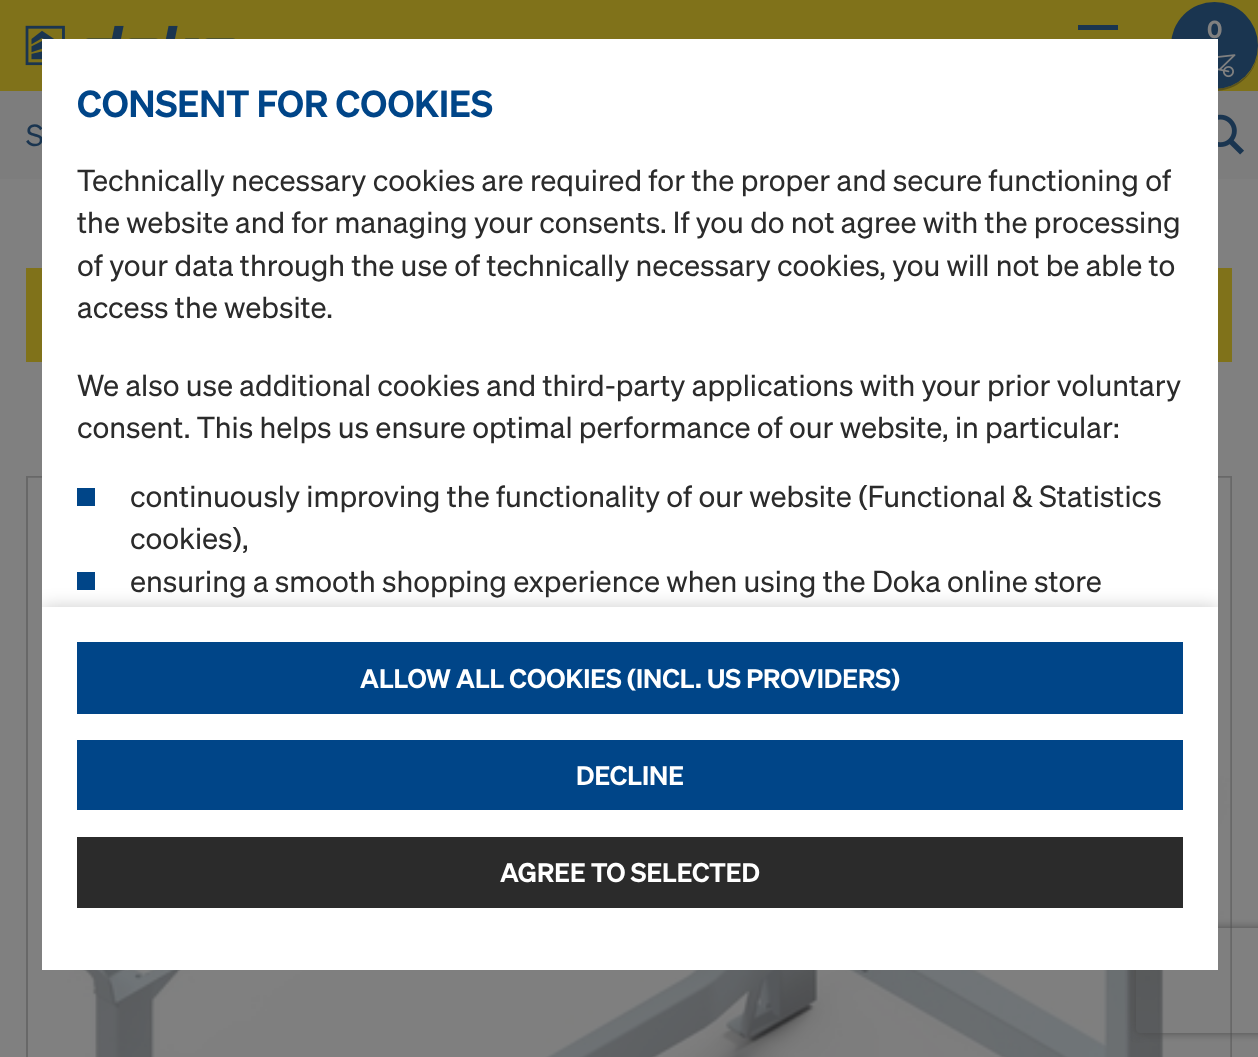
<svg xmlns="http://www.w3.org/2000/svg" width="1258" height="1057">
<defs>
<clipPath id="clip1"><rect x="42" y="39" width="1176" height="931"/></clipPath>
<clipPath id="clip2"><path d="M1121 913h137v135h-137zm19 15h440c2 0 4 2 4 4v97c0 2-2 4-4 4h-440c-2 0-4-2-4-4v-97c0-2 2-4 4-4z" clip-rule="evenodd"/></clipPath>
</defs>
<rect width="100%" height="100%" fill="#808080"/>
<rect width="1258" height="91" fill="#80721a"/>
<image x="25" y="25" width="210" height="41" href="media/1.png"/>
<path d="M1078 25v5h40v-5zm0 23h40v-5h-40zm0 18h40v-6h-40z" fill="#1a3550"/>
<path d="M1258 52c-8 49-79 49-87 0c2 22 21 39 43 39c23 0 42-17 44-39z" fill="#5c531a"/>
<circle cx="1214.5" cy="45.5" r="43.5" fill="#1a3550"/>
<text x="1207" y="38" style="font-family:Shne;font-size:24px;font-weight:600;fill:#808080">0</text>
<image x="1218" y="54" width="18" height="24" href="media/2.png"/>
<rect y="91" width="1258" height="88" fill="#7d7d7d"/>
<text x="26" y="146" style="font-family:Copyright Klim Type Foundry;font-size:29.75px;fill:#1a3550">S</text>
<image x="1218" y="114" width="26" height="41" href="media/3.png"/>
<rect x="26" y="268" width="1206" height="94" fill="#80721a"/>
<rect x="27" y="477" width="1204" height="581" fill="none" stroke="#686868" stroke-width="2"/>
<image x="28" y="477" width="1203" height="580" href="media/4.png"/>
<rect x="42" y="39" width="1176" height="568" fill="#fff"/>
<text x="77" y="117" style="font-family:Shne;font-size:36.75px;font-weight:600;fill:#004588">CONSENT FOR COOKIES</text>
<text x="77" y="191" style="font-family:Copyright Klim Type Foundry;font-size:29.75px;fill:#2b2b2b">Technically necessary cookies are required for the proper and secure functioning of</text>
<text x="77" y="233" style="font-family:Copyright Klim Type Foundry;font-size:29.75px;fill:#2b2b2b">the website and for managing your consents. If you do not agree with the processing</text>
<text x="77" y="276" style="font-family:Copyright Klim Type Foundry;font-size:29.75px;fill:#2b2b2b">of your data through the use of technically necessary cookies, you will not be able to</text>
<text x="77" y="318" style="font-family:Copyright Klim Type Foundry;font-size:29.75px;fill:#2b2b2b">access the website.</text>
<text x="77" y="396" style="font-family:Copyright Klim Type Foundry;font-size:29.75px;fill:#2b2b2b">We also use additional cookies and third-party applications with your prior voluntary</text>
<text x="77" y="438" style="font-family:Copyright Klim Type Foundry;font-size:29.75px;fill:#2b2b2b">consent. This helps us ensure optimal performance of our website, in particular:</text>
<rect x="77" y="488" width="18" height="18" fill="#004588"/>
<text x="130" y="507" style="font-family:Copyright Klim Type Foundry;font-size:29.75px;fill:#2b2b2b">continuously improving the functionality of our website (Functional &amp; Statistics</text>
<text x="130" y="549" style="font-family:Copyright Klim Type Foundry;font-size:29.75px;fill:#2b2b2b">cookies),</text>
<g clip-path="url(#clip1)">
<rect x="42" y="607" width="1176" height="363" fill="#00000033" filter="blur(9px)"/>
</g>
<rect x="77" y="572" width="18" height="18" fill="#004588"/>
<text x="130" y="592" style="font-family:Copyright Klim Type Foundry;font-size:29.75px;fill:#2b2b2b">ensuring a smooth shopping experience when using the Doka online store</text>
<g clip-path="url(#clip2)">
<rect x="1136" y="928" width="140" height="105" rx="4" fill="#4d4d4d" filter="blur(4.5px)"/>
</g>
<rect x="42" y="607" width="1176" height="363" fill="#fff"/>
<rect x="77" y="642" width="1106" height="72" fill="#004588"/>
<text x="360" y="688" style="font-family:Shne;font-size:26.25px;font-weight:600;fill:#fff">ALLOW ALL COOKIES (INCL. US PROVIDERS)</text>
<rect x="77" y="740" width="1106" height="70" fill="#004588"/>
<text x="576" y="785" style="font-family:Shne;font-size:26.25px;font-weight:600;fill:#fff">DECLINE</text>
<rect x="77" y="837" width="1106" height="71" fill="#2b2b2b"/>
<text x="500" y="882" style="font-family:Shne;font-size:26.25px;font-weight:600;fill:#fff">AGREE TO SELECTED</text>
</svg>
